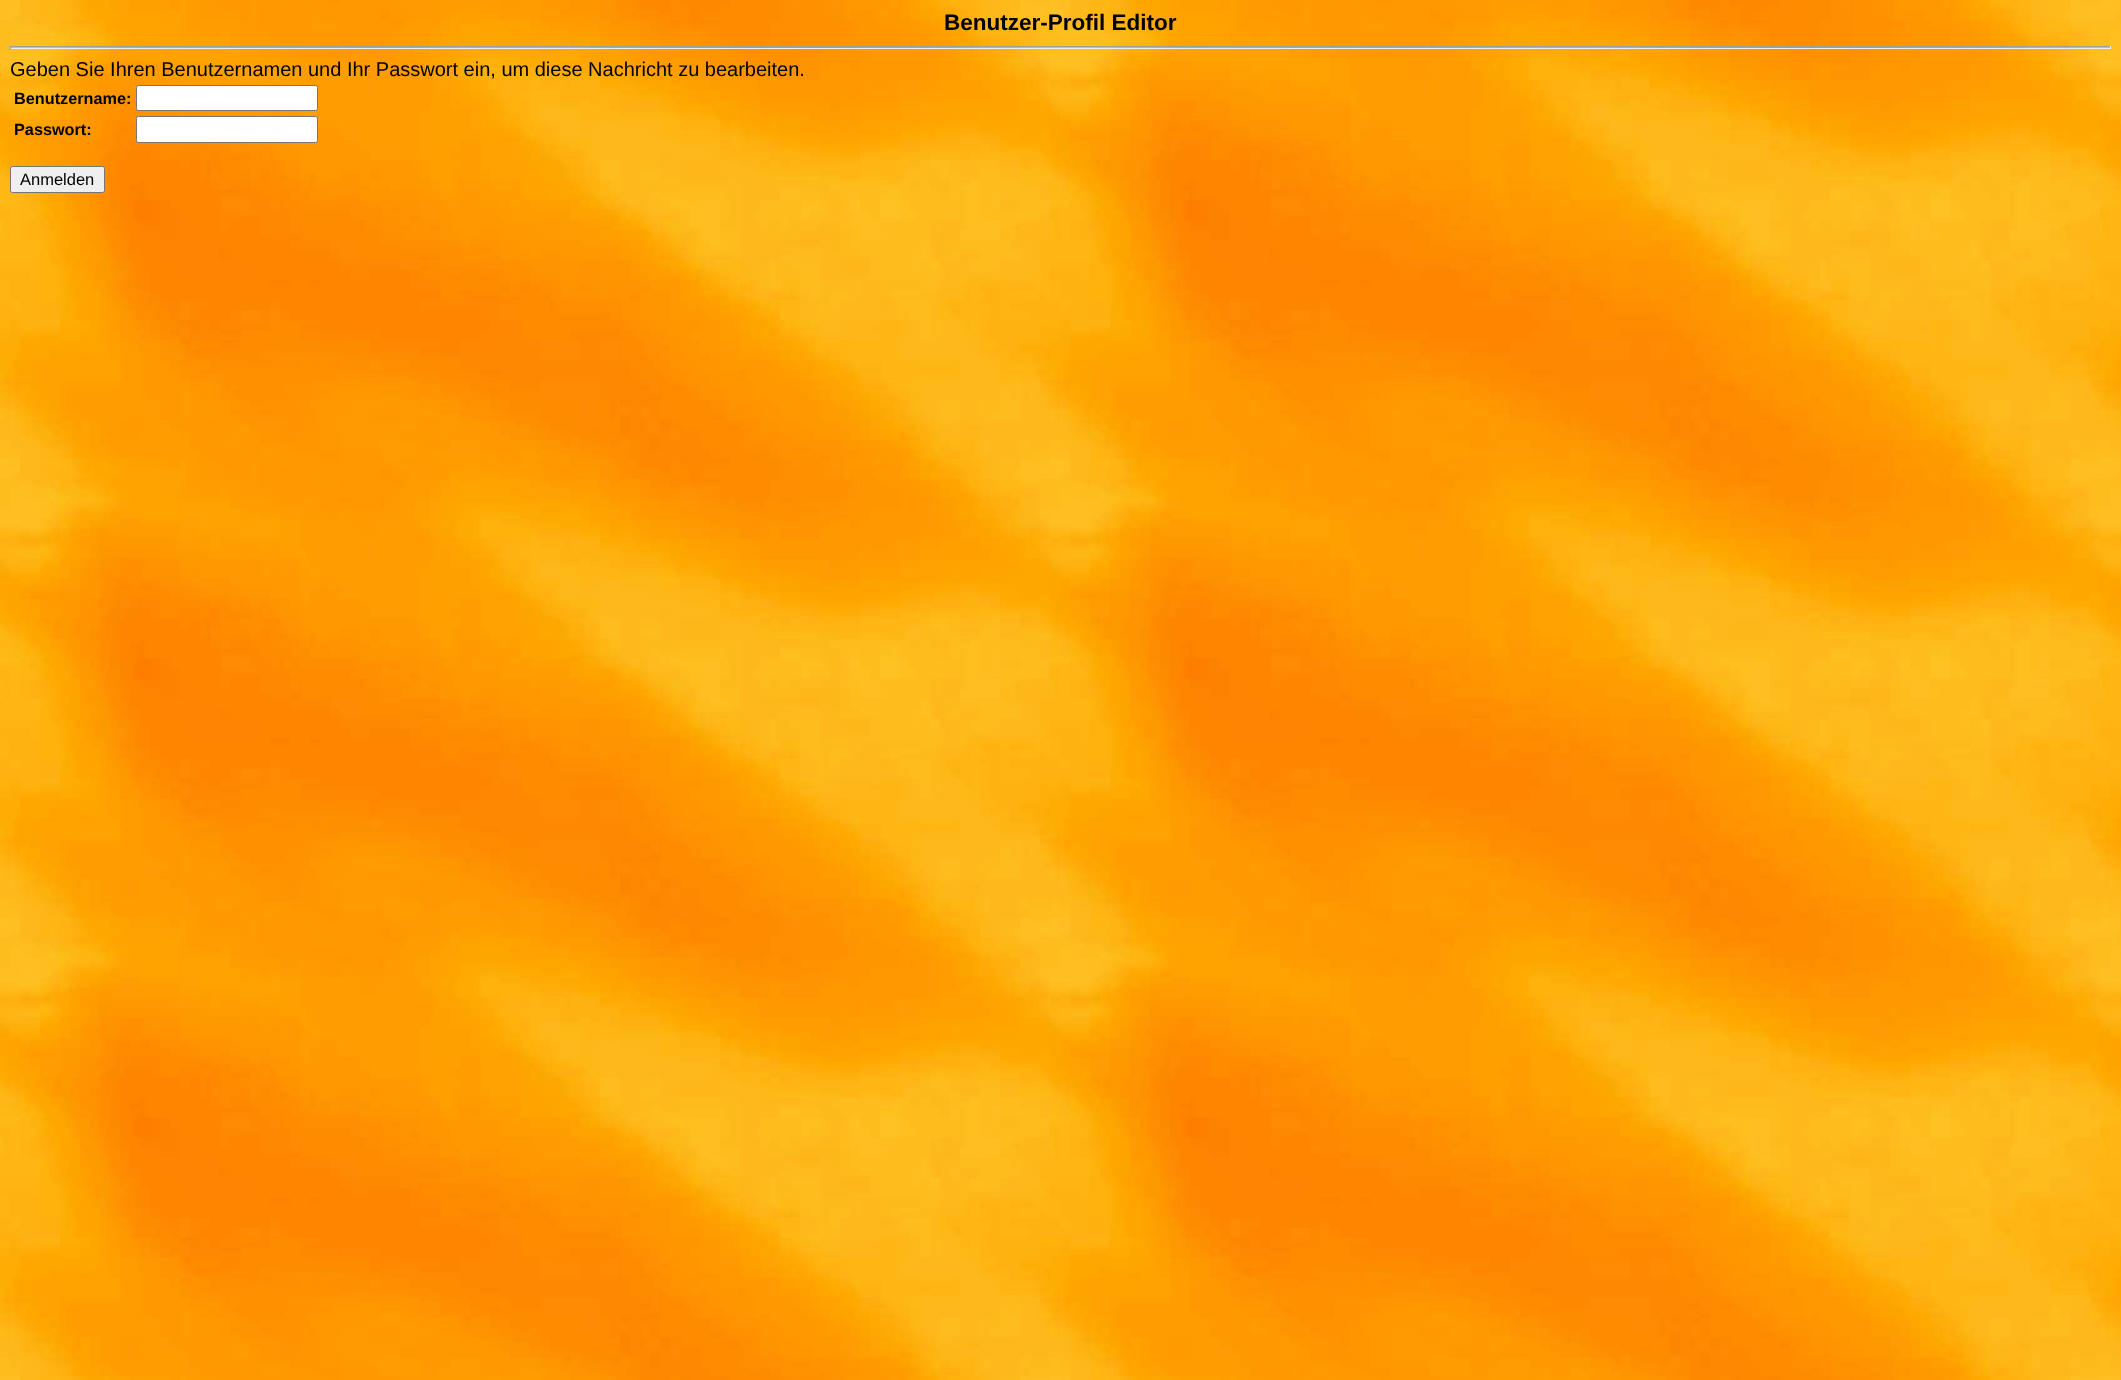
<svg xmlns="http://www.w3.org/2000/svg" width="2121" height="1380">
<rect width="100%" height="100%" fill="#fff"/>
<image x="0" y="0" width="2121" height="1380" href="media/1.png"/>
<text x="944" y="30" style="font-family:Liberation Sans;font-size:22.5px;font-weight:bold;fill:#000">Benutzer-Profil Editor</text>
<rect x="10" y="46" width="2101" height="1" fill="#9f9f9f"/>
<rect x="2110" y="46" width="1" height="3" fill="#eee"/>
<rect x="10" y="48" width="2101" height="1" fill="#eee"/>
<rect x="10" y="46" width="1" height="3" fill="#9f9f9f"/>
<text x="10" y="76" style="font-family:Liberation Sans;font-size:20px;fill:#000">Geben Sie Ihren Benutzernamen und Ihr Passwort ein, um diese Nachricht zu bearbeiten.</text>
<text x="14" y="104" style="font-family:Liberation Sans;font-size:16.25px;font-weight:bold;fill:#000">Benutzername:</text>
<rect x="136.5" y="85.5" width="181" height="25" rx="2" fill="#fff" stroke="#767676"/>
<text x="14" y="135" style="font-family:Liberation Sans;font-size:16.25px;font-weight:bold;fill:#000">Passwort:</text>
<rect x="136.5" y="116.5" width="181" height="26" rx="2" fill="#fff" stroke="#767676"/>
<rect x="10.5" y="166.5" width="94" height="26" rx="2" fill="#efefef" stroke="#767676"/>
<text x="20" y="185" style="font-family:Liberation Sans;font-size:16.5px;fill:#000">Anmelden</text>
</svg>
